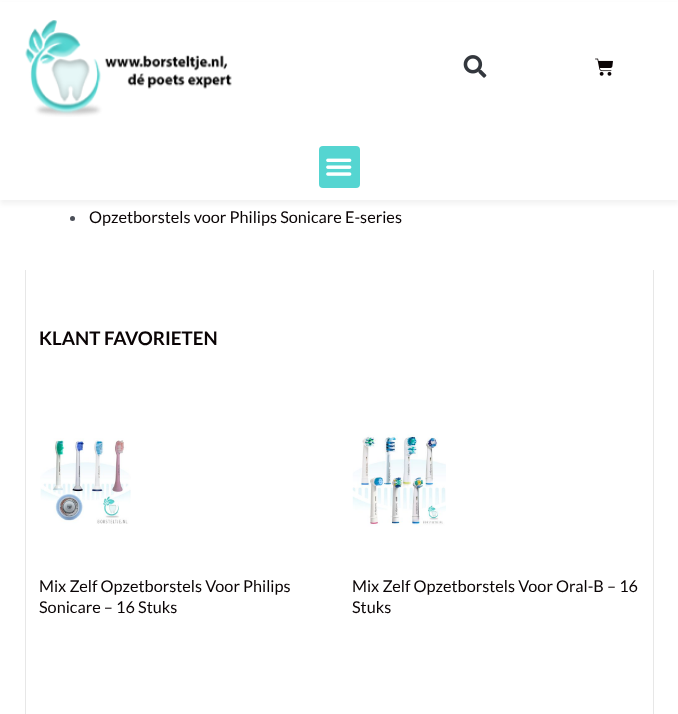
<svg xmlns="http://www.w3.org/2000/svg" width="678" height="714">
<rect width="100%" height="100%" fill="#fff"/>
<rect y="4" width="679" height="200" fill="#0000000d" filter="blur(2.5px)"/>
<rect y="2" width="678" height="198" fill="#fff"/>
<image x="25" y="20" width="207" height="97" href="media/1.png"/>
<image x="463" y="55" width="24" height="23" href="media/2.png"/>
<image x="595" y="58" width="18" height="18" href="media/3.png"/>
<rect x="319" y="146" width="41" height="42" rx="4" fill="#55d5d1"/>
<image x="326" y="158" width="26" height="18" href="media/4.png"/>
<circle cx="72.5" cy="218.5" r="2.5" fill="#4b4f58"/>
<text x="89" y="223" style="font-family:Lato;font-size:16.25px;fill:#0a0405">Opzetborstels voor Philips Sonicare E-series</text>
<rect x="653" y="270" width="1" height="444" fill="#e7e7e7"/>
<rect x="25" y="270" width="1" height="444" fill="#e7e7e7"/>
<text x="39" y="345" style="font-family:Lato;font-size:18.75px;font-weight:bold;fill:#0a0405">KLANT FAVORIETEN</text>
<image x="40" y="438" width="91" height="86" href="media/5.png"/>
<text x="39" y="592" style="font-family:Lato;font-size:16.25px;fill:#0a0405">Mix Zelf Opzetborstels Voor Philips</text>
<text x="39" y="613" style="font-family:Lato;font-size:16.25px;fill:#0a0405">Sonicare – 16 Stuks</text>
<image x="352" y="434" width="94" height="93" href="media/6.png"/>
<text x="352" y="592" style="font-family:Lato;font-size:16.25px;fill:#0a0405">Mix Zelf Opzetborstels Voor Oral-B – 16</text>
<text x="352" y="613" style="font-family:Lato;font-size:16.25px;fill:#0a0405">Stuks</text>
</svg>
